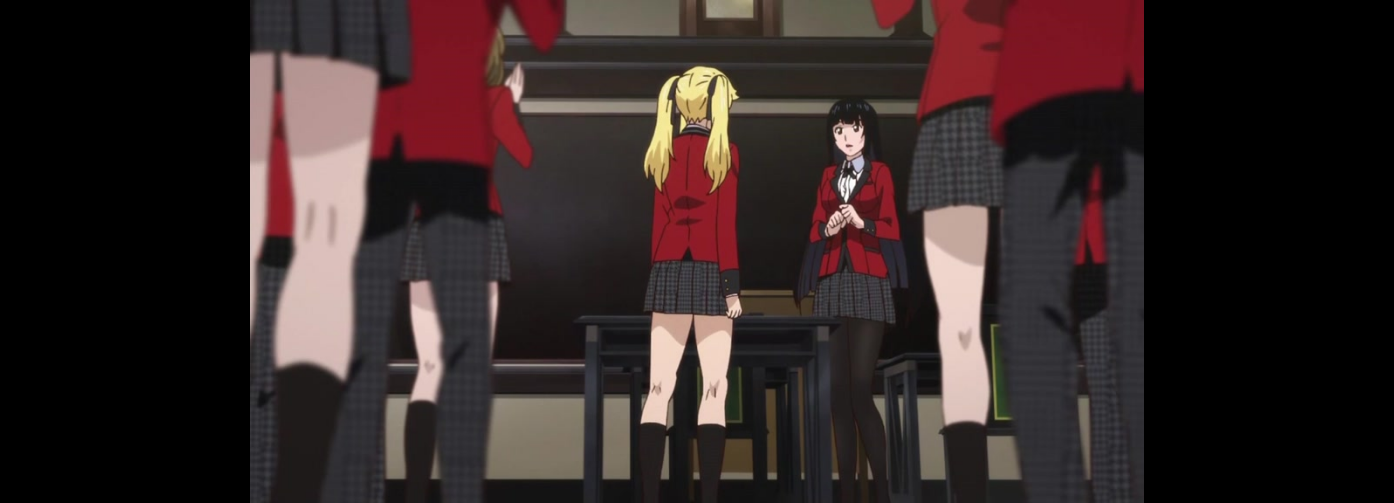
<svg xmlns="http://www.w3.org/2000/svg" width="1394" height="503">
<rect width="100%" height="100%" fill="#000"/>
<image x="250" y="0" width="894" height="503" href="media/1.png"/>
</svg>
